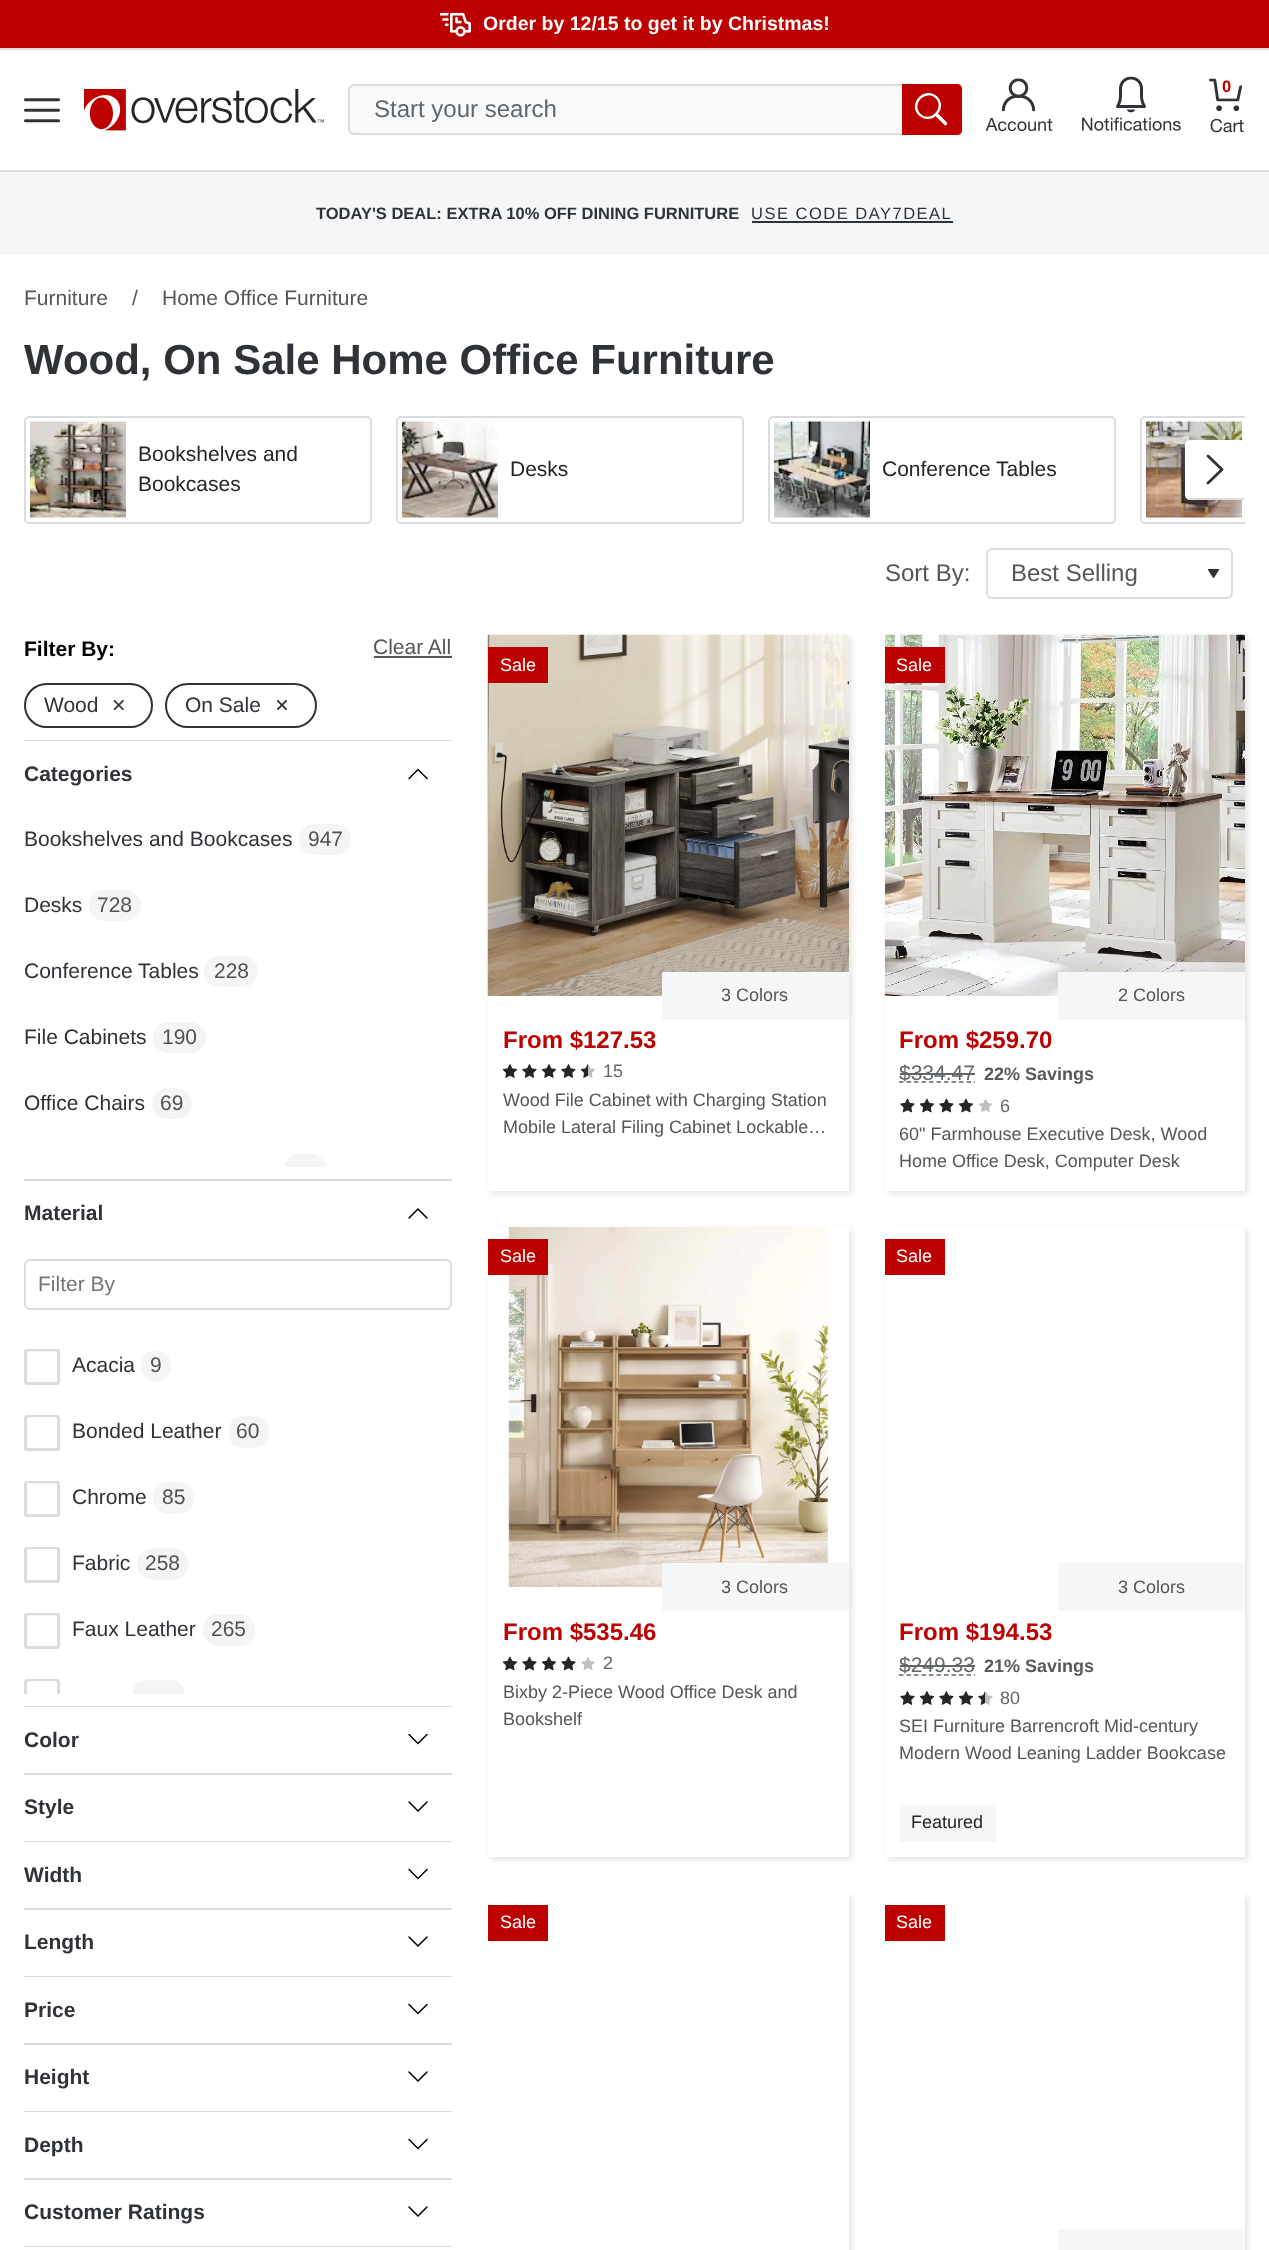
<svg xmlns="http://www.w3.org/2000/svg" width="1269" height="2250">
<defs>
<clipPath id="clip1"><rect x="24" y="416" width="1221" height="108"/></clipPath>
<clipPath id="clip2"><rect x="24" y="1334" width="428" height="360"/></clipPath>
<clipPath id="clip3"><path d="M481 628h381v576h-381zm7 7h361v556h-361z" clip-rule="evenodd"/></clipPath>
<clipPath id="clip4"><path d="M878 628h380v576h-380zm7 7h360v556h-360z" clip-rule="evenodd"/></clipPath>
<clipPath id="clip5"><path d="M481 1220h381v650h-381zm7 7h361v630h-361z" clip-rule="evenodd"/></clipPath>
<clipPath id="clip6"><path d="M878 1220h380v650h-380zm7 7h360v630h-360z" clip-rule="evenodd"/></clipPath>
<clipPath id="clip7"><rect x="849" y="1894" width="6" height="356"/></clipPath>
<clipPath id="clip8"><rect x="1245" y="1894" width="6" height="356"/></clipPath>
</defs>
<rect width="100%" height="100%" fill="#fff"/>
<rect width="1269" height="48" fill="#bd0000"/>
<image x="440" y="12" width="31" height="25" href="media/1.png"/>
<text x="483" y="30" style="font-family:Liberation Sans;font-size:19.5px;font-weight:bold;fill:#fff">Order by 12/15 to get it by Christmas!</text>
<rect y="48" width="1269" height="2" fill="#dadcdf"/>
<rect y="170" width="1269" height="2" fill="#dadcdf"/>
<image x="986" y="78" width="67" height="54" href="media/2.png"/>
<image x="1082" y="76" width="99" height="55" href="media/3.png"/>
<image x="1209" y="78" width="35" height="55" href="media/4.png"/>
<text x="1222" y="92" style="font-family:Liberation Sans;font-size:16.5px;font-weight:bold;fill:#bd0000">0</text>
<image x="24" y="98" width="36" height="25" href="media/5.png"/>
<image x="84" y="89" width="240" height="42" href="media/6.png"/>
<rect x="349" y="85" width="612" height="49" rx="5" fill="#f9fafb" stroke="#dadcdf" stroke-width="2"/>
<text x="374" y="117" style="font-family:Liberation Sans;font-size:24px;fill:#626669">Start your search</text>
<path d="M902 84h55c3 0 5 2 5 5v41c0 3-2 5-5 5h-55z" fill="#bd0000"/>
<path d="M945.5 123.5l-8-8" fill="none" stroke="#fff" stroke-width="3.5" stroke-linecap="round"/>
<path d="M936.5 97.5c10.5 11-6 27.5-17 17c-10.5-11 6-27.5 17-17z" fill="none" stroke="#fff" stroke-width="2.4"/>
<rect y="172" width="1269" height="83" fill="#f5f6f7"/>
<text x="316" y="219" style="font-family:Liberation Sans;font-size:16.5px;font-weight:bold;fill:#2f3337">TODAY'S DEAL: EXTRA 10% OFF DINING FURNITURE</text>
<text x="751" y="219" style="font-family:Liberation Sans;font-size:16.5px;letter-spacing:1.5px;fill:#2f3337">USE CODE DAY7DEAL</text>
<rect x="752" y="221" width="201" height="2" fill="#2f3337"/>
<text x="24" y="305" style="font-family:Liberation Sans;font-size:21px;fill:#545658">Furniture</text>
<text x="132" y="305" style="font-family:Liberation Sans;font-size:21px;fill:#545658">/</text>
<text x="162" y="305" style="font-family:Liberation Sans;font-size:21px;fill:#545658">Home Office Furniture</text>
<text x="24" y="374" style="font-family:Liberation Sans;font-size:42px;font-weight:bold;fill:#2f3337">Wood, On Sale Home Office Furniture</text>
<rect x="25" y="417" width="346" height="106" rx="4" fill="none" stroke="#dadcdf" stroke-width="2"/>
<image x="30" y="421" width="96" height="97" href="media/7.png"/>
<text x="138" y="461" style="font-family:Liberation Sans;font-size:21px;fill:#252525">Bookshelves and</text>
<text x="138" y="491" style="font-family:Liberation Sans;font-size:21px;fill:#252525">Bookcases</text>
<rect x="397" y="417" width="346" height="106" rx="4" fill="none" stroke="#dadcdf" stroke-width="2"/>
<image x="402" y="421" width="96" height="97" href="media/8.png"/>
<text x="510" y="476" style="font-family:Liberation Sans;font-size:21px;fill:#252525">Desks</text>
<rect x="769" y="417" width="346" height="106" rx="4" fill="none" stroke="#dadcdf" stroke-width="2"/>
<image x="774" y="421" width="96" height="97" href="media/9.png"/>
<text x="882" y="476" style="font-family:Liberation Sans;font-size:21px;fill:#252525">Conference Tables</text>
<g clip-path="url(#clip1)">
<rect x="1141" y="417" width="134" height="106" rx="4" fill="none" stroke="#dadcdf" stroke-width="2"/>
</g>
<image x="1146" y="421" width="96" height="97" href="media/10.png"/>
<rect x="1185" y="440" width="60" height="60" rx="5" fill="#fff"/>
<rect x="1188" y="498" width="56" height="2" fill="#dadcdf"/>
<path d="M1208 483l14-13.5l-14-13.5" fill="none" stroke="#2f3337" stroke-width="2.8" stroke-linecap="round" stroke-linejoin="round"/>
<text x="885" y="581" style="font-family:Liberation Sans;font-size:24px;fill:#545658">Sort By:</text>
<image x="1208" y="569" width="12" height="9" href="media/11.png"/>
<rect x="987" y="549" width="245" height="49" rx="5" fill="none" stroke="#dadcdf" stroke-width="2"/>
<text x="1011" y="581" style="font-family:Liberation Sans;font-size:24px;fill:#545658">Best Selling</text>
<text x="24" y="656" style="font-family:Liberation Sans;font-size:21px;font-weight:bold;fill:#000">Filter By:</text>
<text x="373" y="654" style="font-family:Liberation Sans;font-size:21px;fill:#545658">Clear All</text>
<rect x="374" y="656" width="78" height="2" fill="#545658"/>
<rect x="25" y="684" width="127" height="43" rx="21.5" fill="none" stroke="#2f3337" stroke-width="2"/>
<text x="44" y="712" style="font-family:Liberation Sans;font-size:21px;fill:#2f3337">Wood</text>
<image x="113" y="700" width="11" height="11" href="media/12.png"/>
<rect x="166" y="684" width="150" height="43" rx="21.5" fill="none" stroke="#2f3337" stroke-width="2"/>
<text x="185" y="712" style="font-family:Liberation Sans;font-size:21px;fill:#2f3337">On Sale</text>
<image x="276" y="700" width="11" height="11" href="media/13.png"/>
<rect x="24" y="740" width="428" height="1" fill="#dadcdf"/>
<text x="24" y="781" style="font-family:Liberation Sans;font-size:21px;font-weight:bold;fill:#2f3337">Categories</text>
<path d="M409 778.5l9-9l9 9" fill="none" stroke="#000" stroke-width="1.5" stroke-linecap="round"/>
<text x="24" y="846" style="font-family:Liberation Sans;font-size:21px;fill:#2f3337">Bookshelves and Bookcases</text>
<rect x="299" y="824" width="52" height="31" rx="15" fill="#f5f5f5"/>
<text x="308" y="846" style="font-family:Liberation Sans;font-size:21px;fill:#515151">947</text>
<text x="24" y="912" style="font-family:Liberation Sans;font-size:21px;fill:#2f3337">Desks</text>
<rect x="89" y="890" width="52" height="31" rx="15" fill="#f5f5f5"/>
<text x="97" y="912" style="font-family:Liberation Sans;font-size:21px;fill:#515151">728</text>
<text x="24" y="978" style="font-family:Liberation Sans;font-size:21px;fill:#2f3337">Conference Tables</text>
<rect x="204" y="956" width="54" height="31" rx="15" fill="#f5f5f5"/>
<text x="214" y="978" style="font-family:Liberation Sans;font-size:21px;fill:#515151">228</text>
<text x="24" y="1044" style="font-family:Liberation Sans;font-size:21px;fill:#2f3337">File Cabinets</text>
<rect x="153" y="1022" width="53" height="31" rx="15" fill="#f5f5f5"/>
<text x="162" y="1044" style="font-family:Liberation Sans;font-size:21px;fill:#515151">190</text>
<text x="24" y="1110" style="font-family:Liberation Sans;font-size:21px;fill:#2f3337">Office Chairs</text>
<rect x="152" y="1088" width="40" height="31" rx="15" fill="#f5f5f5"/>
<text x="160" y="1110" style="font-family:Liberation Sans;font-size:21px;fill:#515151">69</text>
<path d="M299 1154h12c8.5 0 15 6.5 15 15v-2h-42v2c0-8.5 6.5-15 15-15z" fill="#f5f5f5"/>
<rect x="24" y="1179" width="428" height="2" fill="#dadcdf"/>
<text x="24" y="1220" style="font-family:Liberation Sans;font-size:21px;font-weight:bold;fill:#2f3337">Material</text>
<path d="M409 1218l9-9l9 9" fill="none" stroke="#000" stroke-width="1.5" stroke-linecap="round"/>
<rect x="25" y="1260" width="426" height="49" rx="5" fill="none" stroke="#dadcdf" stroke-width="2"/>
<text x="38" y="1291" style="font-family:Liberation Sans;font-size:21px;fill:#757575">Filter By</text>
<rect x="25.5" y="1350.5" width="33" height="33" rx="1.5" fill="none" stroke="#dadcdf" stroke-width="3"/>
<image x="27" y="1351" width="30" height="1" href="media/14.png"/>
<text x="72" y="1372" style="font-family:Liberation Sans;font-size:21px;fill:#2f3337">Acacia</text>
<rect x="141" y="1350" width="30" height="32" rx="15" fill="#f5f5f5"/>
<text x="150" y="1372" style="font-family:Liberation Sans;font-size:21px;fill:#515151">9</text>
<rect x="25.5" y="1416.5" width="33" height="33" rx="1.5" fill="none" stroke="#dadcdf" stroke-width="3"/>
<image x="27" y="1417" width="30" height="1" href="media/14.png"/>
<text x="72" y="1438" style="font-family:Liberation Sans;font-size:21px;fill:#2f3337">Bonded Leather</text>
<rect x="228" y="1416" width="41" height="32" rx="15" fill="#f5f5f5"/>
<text x="236" y="1438" style="font-family:Liberation Sans;font-size:21px;fill:#515151">60</text>
<rect x="25.5" y="1482.5" width="33" height="33" rx="1.5" fill="none" stroke="#dadcdf" stroke-width="3"/>
<image x="27" y="1483" width="30" height="1" href="media/14.png"/>
<text x="72" y="1504" style="font-family:Liberation Sans;font-size:21px;fill:#2f3337">Chrome</text>
<rect x="153" y="1482" width="41" height="32" rx="15" fill="#f5f5f5"/>
<text x="162" y="1504" style="font-family:Liberation Sans;font-size:21px;fill:#515151">85</text>
<rect x="25.5" y="1548.5" width="33" height="33" rx="1.5" fill="none" stroke="#dadcdf" stroke-width="3"/>
<image x="27" y="1549" width="30" height="1" href="media/14.png"/>
<text x="72" y="1570" style="font-family:Liberation Sans;font-size:21px;fill:#2f3337">Fabric</text>
<rect x="137" y="1548" width="52" height="32" rx="15" fill="#f5f5f5"/>
<text x="145" y="1570" style="font-family:Liberation Sans;font-size:21px;fill:#515151">258</text>
<rect x="25.5" y="1614.5" width="33" height="33" rx="1.5" fill="none" stroke="#dadcdf" stroke-width="3"/>
<image x="27" y="1615" width="30" height="1" href="media/14.png"/>
<text x="72" y="1636" style="font-family:Liberation Sans;font-size:21px;fill:#2f3337">Faux Leather</text>
<rect x="203" y="1614" width="52" height="32" rx="15" fill="#f5f5f5"/>
<text x="211" y="1636" style="font-family:Liberation Sans;font-size:21px;fill:#515151">265</text>
<rect x="24" y="1706" width="428" height="1" fill="#dadcdf"/>
<g clip-path="url(#clip2)">
<rect x="25.5" y="1680.5" width="33" height="33" rx="1.5" fill="none" stroke="#dadcdf" stroke-width="3"/>
</g>
<image x="27" y="1681" width="30" height="1" href="media/14.png"/>
<path d="M147 1680h23c8.5 0 15 6.5 15 15v-1h-53v1c0-8.5 6.5-15 15-15z" fill="#f5f5f5"/>
<text x="24" y="1747" style="font-family:Liberation Sans;font-size:21px;font-weight:bold;fill:#2f3337">Color</text>
<path d="M427 1734.5l-9 9l-9-9" fill="none" stroke="#000" stroke-width="1.5" stroke-linecap="round"/>
<rect x="24" y="1773" width="428" height="2" fill="#dadcdf"/>
<text x="24" y="1814" style="font-family:Liberation Sans;font-size:21px;font-weight:bold;fill:#2f3337">Style</text>
<path d="M427 1802l-9 9l-9-9" fill="none" stroke="#000" stroke-width="1.5" stroke-linecap="round"/>
<rect x="24" y="1841" width="428" height="1" fill="#dadcdf"/>
<text x="24" y="1882" style="font-family:Liberation Sans;font-size:21px;font-weight:bold;fill:#2f3337">Width</text>
<path d="M427 1869.5l-9 9l-9-9" fill="none" stroke="#000" stroke-width="1.5" stroke-linecap="round"/>
<rect x="24" y="1908" width="428" height="2" fill="#dadcdf"/>
<text x="24" y="1949" style="font-family:Liberation Sans;font-size:21px;font-weight:bold;fill:#2f3337">Length</text>
<path d="M427 1937l-9 9l-9-9" fill="none" stroke="#000" stroke-width="1.5" stroke-linecap="round"/>
<rect x="24" y="1976" width="428" height="1" fill="#dadcdf"/>
<text x="24" y="2017" style="font-family:Liberation Sans;font-size:21px;font-weight:bold;fill:#2f3337">Price</text>
<path d="M427 2004.5l-9 9l-9-9" fill="none" stroke="#000" stroke-width="1.5" stroke-linecap="round"/>
<rect x="24" y="2043" width="428" height="2" fill="#dadcdf"/>
<text x="24" y="2084" style="font-family:Liberation Sans;font-size:21px;font-weight:bold;fill:#2f3337">Height</text>
<path d="M427 2072l-9 9l-9-9" fill="none" stroke="#000" stroke-width="1.5" stroke-linecap="round"/>
<rect x="24" y="2111" width="428" height="1" fill="#dadcdf"/>
<text x="24" y="2152" style="font-family:Liberation Sans;font-size:21px;font-weight:bold;fill:#2f3337">Depth</text>
<path d="M427 2139.5l-9 9l-9-9" fill="none" stroke="#000" stroke-width="1.5" stroke-linecap="round"/>
<rect x="24" y="2178" width="428" height="2" fill="#dadcdf"/>
<text x="24" y="2219" style="font-family:Liberation Sans;font-size:21px;font-weight:bold;fill:#2f3337">Customer Ratings</text>
<path d="M427 2207l-9 9l-9-9" fill="none" stroke="#000" stroke-width="1.5" stroke-linecap="round"/>
<rect x="24" y="2246" width="428" height="1" fill="#dadcdf"/>
<g clip-path="url(#clip3)">
<rect x="491" y="638" width="361" height="556" fill="#0000001a" filter="blur(3px)"/>
</g>
<image x="487" y="634" width="362" height="362" href="media/15.png"/>
<rect x="488" y="647" width="60" height="36" fill="#bd0000"/>
<text x="500" y="671" style="font-family:Liberation Sans;font-size:18px;fill:#fff">Sale</text>
<text x="503" y="1048" style="font-family:Liberation Sans;font-size:24px;font-weight:bold;fill:#bd0000">From $127.53</text>
<image x="503" y="1064" width="15" height="14" href="media/16.png"/>
<image x="522" y="1064" width="15" height="14" href="media/17.png"/>
<image x="542" y="1064" width="15" height="14" href="media/16.png"/>
<image x="561" y="1064" width="15" height="14" href="media/17.png"/>
<image x="581" y="1064" width="14" height="14" href="media/18.png"/>
<text x="603" y="1077" style="font-family:Liberation Sans;font-size:18px;fill:#626669">15</text>
<text x="503" y="1106" style="font-family:Liberation Sans;font-size:18px;fill:#545658">Wood File Cabinet with Charging Station</text>
<text x="503" y="1133" style="font-family:Liberation Sans;font-size:18px;fill:#545658">Mobile Lateral Filing Cabinet Lockable…</text>
<rect x="662" y="972" width="187" height="48" fill="#f5f6f7"/>
<text x="721" y="1001" style="font-family:Liberation Sans;font-size:18px;fill:#545658">3 Colors</text>
<g clip-path="url(#clip4)">
<rect x="888" y="638" width="360" height="556" fill="#0000001a" filter="blur(3px)"/>
</g>
<image x="885" y="634" width="360" height="362" href="media/19.png"/>
<rect x="885" y="647" width="60" height="36" fill="#bd0000"/>
<text x="896" y="671" style="font-family:Liberation Sans;font-size:18px;fill:#fff">Sale</text>
<text x="899" y="1048" style="font-family:Liberation Sans;font-size:24px;font-weight:bold;fill:#bd0000">From $259.70</text>
<path d="M899 1082h76" fill="none" stroke="#626669" stroke-width="1.5" stroke-dasharray="4.5 3"/>
<text x="899" y="1080" style="font-family:Liberation Sans;font-size:21px;fill:#626669">$334.47</text>
<rect x="900" y="1073" width="75" height="2" fill="#626669"/>
<text x="984" y="1080" style="font-family:Liberation Sans;font-size:18px;font-weight:bold;fill:#5a5a5a">22% Savings</text>
<image x="900" y="1098" width="15" height="15" href="media/20.png"/>
<image x="920" y="1098" width="15" height="15" href="media/21.png"/>
<image x="939" y="1098" width="15" height="15" href="media/20.png"/>
<image x="959" y="1098" width="15" height="15" href="media/21.png"/>
<image x="978" y="1099" width="15" height="13" href="media/22.png"/>
<text x="1000" y="1112" style="font-family:Liberation Sans;font-size:18px;fill:#626669">6</text>
<text x="899" y="1140" style="font-family:Liberation Sans;font-size:18px;fill:#545658">60" Farmhouse Executive Desk, Wood</text>
<text x="899" y="1167" style="font-family:Liberation Sans;font-size:18px;fill:#545658">Home Office Desk, Computer Desk</text>
<rect x="1058" y="972" width="187" height="48" fill="#f5f6f7"/>
<text x="1118" y="1001" style="font-family:Liberation Sans;font-size:18px;fill:#545658">2 Colors</text>
<g clip-path="url(#clip5)">
<rect x="491" y="1230" width="361" height="630" fill="#0000001a" filter="blur(3px)"/>
</g>
<image x="507" y="1227" width="323" height="360" href="media/23.png"/>
<rect x="488" y="1239" width="60" height="36" fill="#bd0000"/>
<text x="500" y="1262" style="font-family:Liberation Sans;font-size:18px;fill:#fff">Sale</text>
<text x="503" y="1640" style="font-family:Liberation Sans;font-size:24px;font-weight:bold;fill:#bd0000">From $535.46</text>
<image x="503" y="1656" width="15" height="15" href="media/21.png"/>
<image x="522" y="1656" width="15" height="15" href="media/20.png"/>
<image x="542" y="1656" width="15" height="15" href="media/21.png"/>
<image x="561" y="1656" width="15" height="15" href="media/20.png"/>
<image x="581" y="1657" width="14" height="13" href="media/24.png"/>
<text x="603" y="1669" style="font-family:Liberation Sans;font-size:18px;fill:#626669">2</text>
<text x="503" y="1698" style="font-family:Liberation Sans;font-size:18px;fill:#545658">Bixby 2-Piece Wood Office Desk and</text>
<text x="503" y="1725" style="font-family:Liberation Sans;font-size:18px;fill:#545658">Bookshelf</text>
<rect x="662" y="1563" width="187" height="48" fill="#f5f6f7"/>
<text x="721" y="1593" style="font-family:Liberation Sans;font-size:18px;fill:#545658">3 Colors</text>
<g clip-path="url(#clip6)">
<rect x="888" y="1230" width="360" height="630" fill="#0000001a" filter="blur(3px)"/>
</g>
<rect x="885" y="1239" width="60" height="36" fill="#bd0000"/>
<text x="896" y="1262" style="font-family:Liberation Sans;font-size:18px;fill:#fff">Sale</text>
<text x="899" y="1640" style="font-family:Liberation Sans;font-size:24px;font-weight:bold;fill:#bd0000">From $194.53</text>
<text x="899" y="1672" style="font-family:Liberation Sans;font-size:21px;fill:#626669">$249.33</text>
<path d="M899 1675h76" fill="none" stroke="#626669" stroke-width="1.5" stroke-dasharray="4.5 3"/>
<rect x="900" y="1665" width="75" height="2" fill="#626669"/>
<text x="984" y="1672" style="font-family:Liberation Sans;font-size:18px;font-weight:bold;fill:#5a5a5a">21% Savings</text>
<image x="900" y="1691" width="15" height="14" href="media/17.png"/>
<image x="920" y="1691" width="15" height="14" href="media/16.png"/>
<image x="939" y="1691" width="15" height="14" href="media/17.png"/>
<image x="959" y="1691" width="15" height="14" href="media/16.png"/>
<image x="978" y="1691" width="15" height="14" href="media/25.png"/>
<text x="1000" y="1704" style="font-family:Liberation Sans;font-size:18px;fill:#626669">80</text>
<text x="899" y="1732" style="font-family:Liberation Sans;font-size:18px;fill:#545658">SEI Furniture Barrencroft Mid-century</text>
<text x="899" y="1759" style="font-family:Liberation Sans;font-size:18px;fill:#545658">Modern Wood Leaning Ladder Bookcase</text>
<rect x="900" y="1805" width="96" height="37" fill="#f5f6f7"/>
<text x="911" y="1828" style="font-family:Liberation Sans;font-size:18px;fill:#252525">Featured</text>
<rect x="1058" y="1563" width="187" height="48" fill="#f5f6f7"/>
<text x="1118" y="1593" style="font-family:Liberation Sans;font-size:18px;fill:#545658">3 Colors</text>
<g clip-path="url(#clip7)">
<rect x="491" y="1896" width="361" height="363" fill="#0000001a" filter="blur(3px)"/>
</g>
<rect x="488" y="1905" width="60" height="36" fill="#bd0000"/>
<text x="500" y="1928" style="font-family:Liberation Sans;font-size:18px;fill:#fff">Sale</text>
<g clip-path="url(#clip8)">
<rect x="888" y="1896" width="360" height="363" fill="#0000001a" filter="blur(3px)"/>
</g>
<rect x="885" y="1905" width="60" height="36" fill="#bd0000"/>
<text x="896" y="1928" style="font-family:Liberation Sans;font-size:18px;fill:#fff">Sale</text>
<rect x="1058" y="2229" width="187" height="21" fill="#f5f6f7"/>
</svg>
